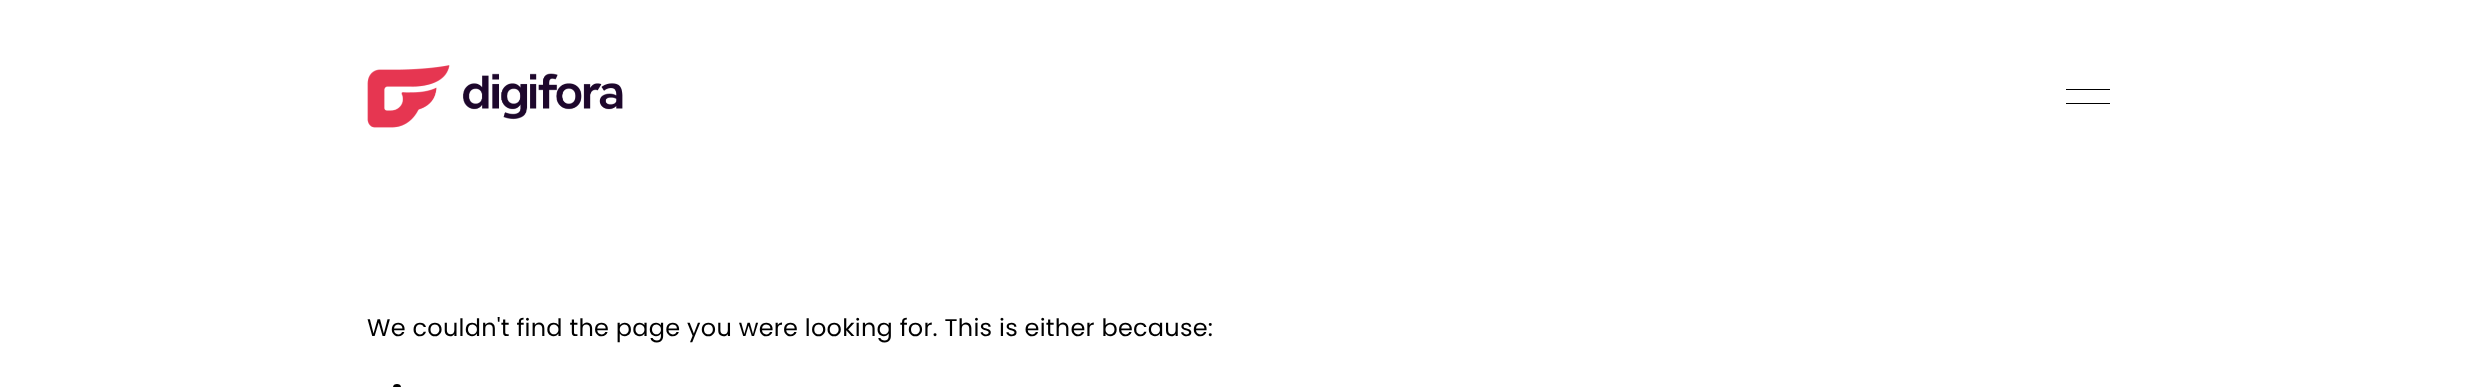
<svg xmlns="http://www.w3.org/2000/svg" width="2483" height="387">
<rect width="100%" height="100%" fill="#fff"/>
<image x="367" y="65" width="256" height="63" href="media/1.png"/>
<rect x="2066" y="89" width="44" height="1" fill="#000"/>
<rect x="2066" y="103" width="44" height="1" fill="#000"/>
<text x="367" y="336" style="font-family:Poppins;font-size:24px;letter-spacing:0.25px;fill:#000">We couldn't find the page you were looking for. This is either because:</text>
<rect x="393" y="384" width="8" height="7" rx="4" fill="#000"/>
</svg>
